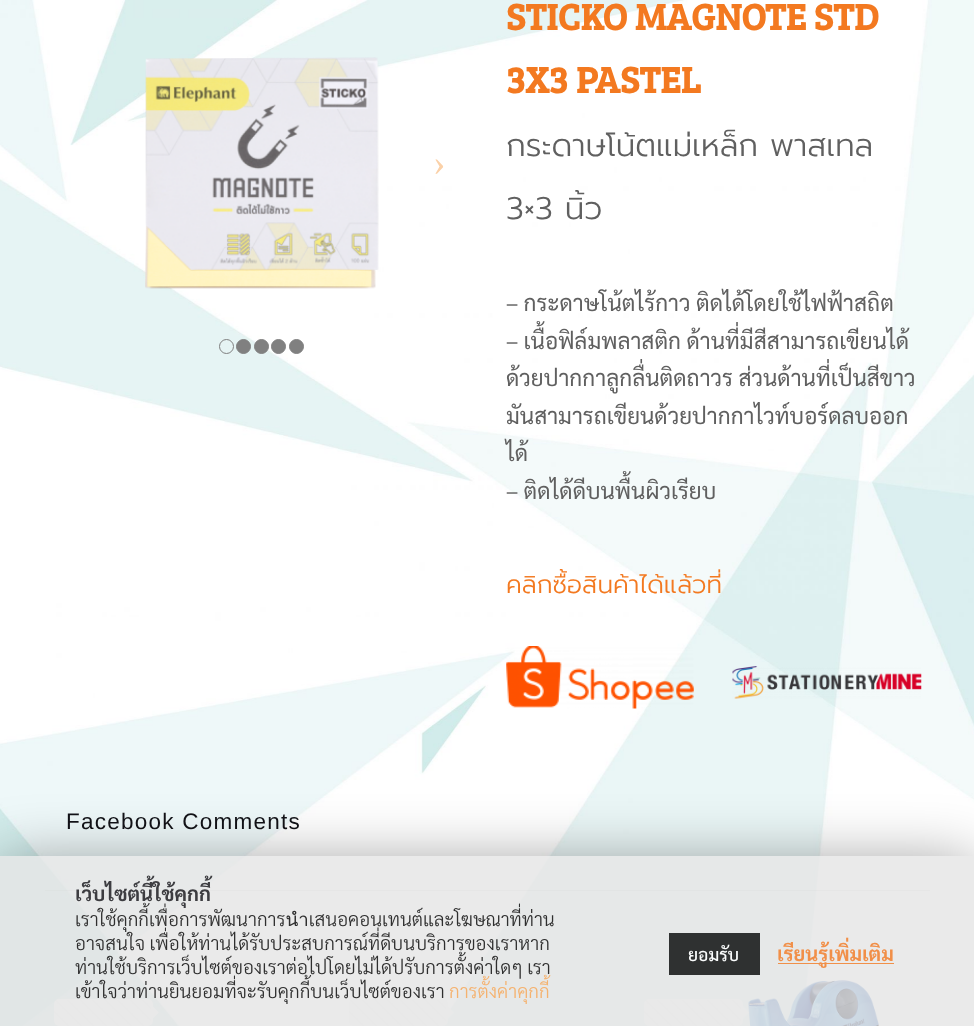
<svg xmlns="http://www.w3.org/2000/svg" width="974" height="1026">
<defs>
<clipPath id="clip1"><path d="M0 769h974v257h-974zm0 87h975v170h-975z" clip-rule="evenodd"/></clipPath>
</defs>
<rect width="100%" height="100%" fill="#fff"/>
<image x="0" y="0" width="974" height="1026" href="media/1.png"/>
<image x="145" y="57" width="234" height="232" href="media/2.png"/>
<text x="433" y="175" style="font-family:Liberation Serif;font-size:37.5px;fill:#fbd1a8">›</text>
<circle cx="226.5" cy="346.5" r="7" fill="none" stroke="#808080"/>
<circle cx="243.5" cy="346.5" r="7" fill="#808080" stroke="#808080"/>
<circle cx="261.5" cy="346.5" r="7" fill="#808080" stroke="#808080"/>
<circle cx="278.5" cy="346.5" r="7" fill="#808080" stroke="#808080"/>
<circle cx="296.5" cy="346.5" r="7" fill="#808080" stroke="#808080"/>
<text x="506" y="30" style="font-family:Bree Serif;font-size:37.5px;font-weight:bold;fill:#f37920">STICKO MAGNOTE STD</text>
<text x="506" y="93" style="font-family:Bree Serif;font-size:37.5px;font-weight:bold;fill:#f37920">3X3 PASTEL</text>
<text x="506" y="156" style="font-family:Prompt;font-size:31.25px;font-weight:300;fill:#606060">กระดาษโน้ตแม่เหล็ก พาสเทล</text>
<text x="506" y="219" style="font-family:Prompt;font-size:31.25px;font-weight:300;fill:#606060">3×3 นิ้ว</text>
<text x="506" y="311" style="font-family:Sarabun;font-size:22.5px;fill:#606060">– กระดาษโน้ตไร้กาว ติดได้โดยใช้ไฟฟ้าสถิต</text>
<text x="506" y="349" style="font-family:Sarabun;font-size:22.5px;fill:#606060">– เนื้อฟิล์มพลาสติก ด้านที่มีสีสามารถเขียนได้</text>
<text x="506" y="386" style="font-family:Sarabun;font-size:22.5px;fill:#606060">ด้วยปากกาลูกลื่นติดถาวร ส่วนด้านที่เป็นสีขาว</text>
<text x="506" y="424" style="font-family:Sarabun;font-size:22.5px;fill:#606060">มันสามารถเขียนด้วยปากกาไวท์บอร์ดลบออก</text>
<text x="506" y="461" style="font-family:Sarabun;font-size:22.5px;fill:#606060">ได้</text>
<text x="506" y="499" style="font-family:Sarabun;font-size:22.5px;fill:#606060">– ติดได้ดีบนพื้นผิวเรียบ</text>
<text x="506" y="593" style="font-family:Prompt;font-size:25px;font-weight:300;fill:#f37920">คลิกซื้อสินค้าได้แล้วที่</text>
<image x="506" y="646" width="188" height="63" href="media/3.png"/>
<image x="732" y="666" width="190" height="33" href="media/4.png"/>
<text x="66" y="829" style="font-family:Liberation Sans;font-size:22.5px;letter-spacing:1.25px;fill:#121217">Facebook Comments</text>
<rect x="45" y="890" width="885" height="1" fill="#00000014"/>
<rect x="54" y="999" width="99" height="27" rx="5" fill="#f8f8f8"/>
<image x="54" y="1000" width="97" height="26" href="media/5.png"/>
<path d="M152.5 1019v-13l6.5 6.5z" fill="#f8f8f8"/>
<rect x="349" y="999" width="99" height="27" rx="5" fill="#f8f8f8"/>
<image x="349" y="1000" width="97" height="26" href="media/6.png"/>
<path d="M447.5 1019v-13l6.5 6.5z" fill="#f8f8f8"/>
<rect x="644" y="999" width="99" height="27" rx="5" fill="#f8f8f8"/>
<image x="644" y="1000" width="97" height="26" href="media/7.png"/>
<image x="748" y="980" width="131" height="46" href="media/8.png"/>
<path d="M742.5 1019v-13l6.5 6.5z" fill="#f8f8f8"/>
<g clip-path="url(#clip1)">
<rect y="863" width="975" height="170" fill="#00000066" filter="blur(31px)"/>
</g>
<rect y="856" width="974" height="170" fill="#e5e5e5cc"/>
<text x="75" y="901" style="font-family:Sarabun;font-size:20px;font-weight:bold;fill:#3d3d41">เว็บไซต์นี้ใช้คุกกี้</text>
<text x="75" y="926" style="font-family:Sarabun;font-size:18.75px;font-weight:300;fill:#2f2f2f">เราใช้คุกกี้เพื่อการพัฒนาการนำเสนอคอนเทนต์และโฆษณาที่ท่าน</text>
<text x="75" y="950" style="font-family:Sarabun;font-size:18.75px;font-weight:300;fill:#2f2f2f">อาจสนใจ เพื่อให้ท่านได้รับประสบการณ์ที่ดีบนบริการของเราหาก</text>
<text x="75" y="974" style="font-family:Sarabun;font-size:18.75px;font-weight:300;fill:#2f2f2f">ท่านใช้บริการเว็บไซต์ของเราต่อไปโดยไม่ได้ปรับการตั้งค่าใดๆ เรา</text>
<text x="75" y="998" style="font-family:Sarabun;font-size:18.75px;font-weight:300;fill:#2f2f2f">เข้าใจว่าท่านยินยอมที่จะรับคุกกี้บนเว็บไซต์ของเรา</text>
<text x="449" y="998" style="font-family:Sarabun;font-size:18.75px;font-weight:300;fill:#f5b26f">การตั้งค่าคุกกี้</text>
<rect x="669" y="933" width="91" height="42" fill="#2f3131"/>
<text x="688" y="961" style="font-family:Sarabun;font-size:17.5px;font-weight:500;fill:#fbfdfd">ยอมรับ</text>
<rect x="778" y="963" width="116" height="1" fill="#f37920cc"/>
<text x="777" y="961" style="font-family:Sarabun;font-size:20px;font-weight:bold;fill:#f18f48">เรียนรู้เพิ่มเติม</text>
</svg>
